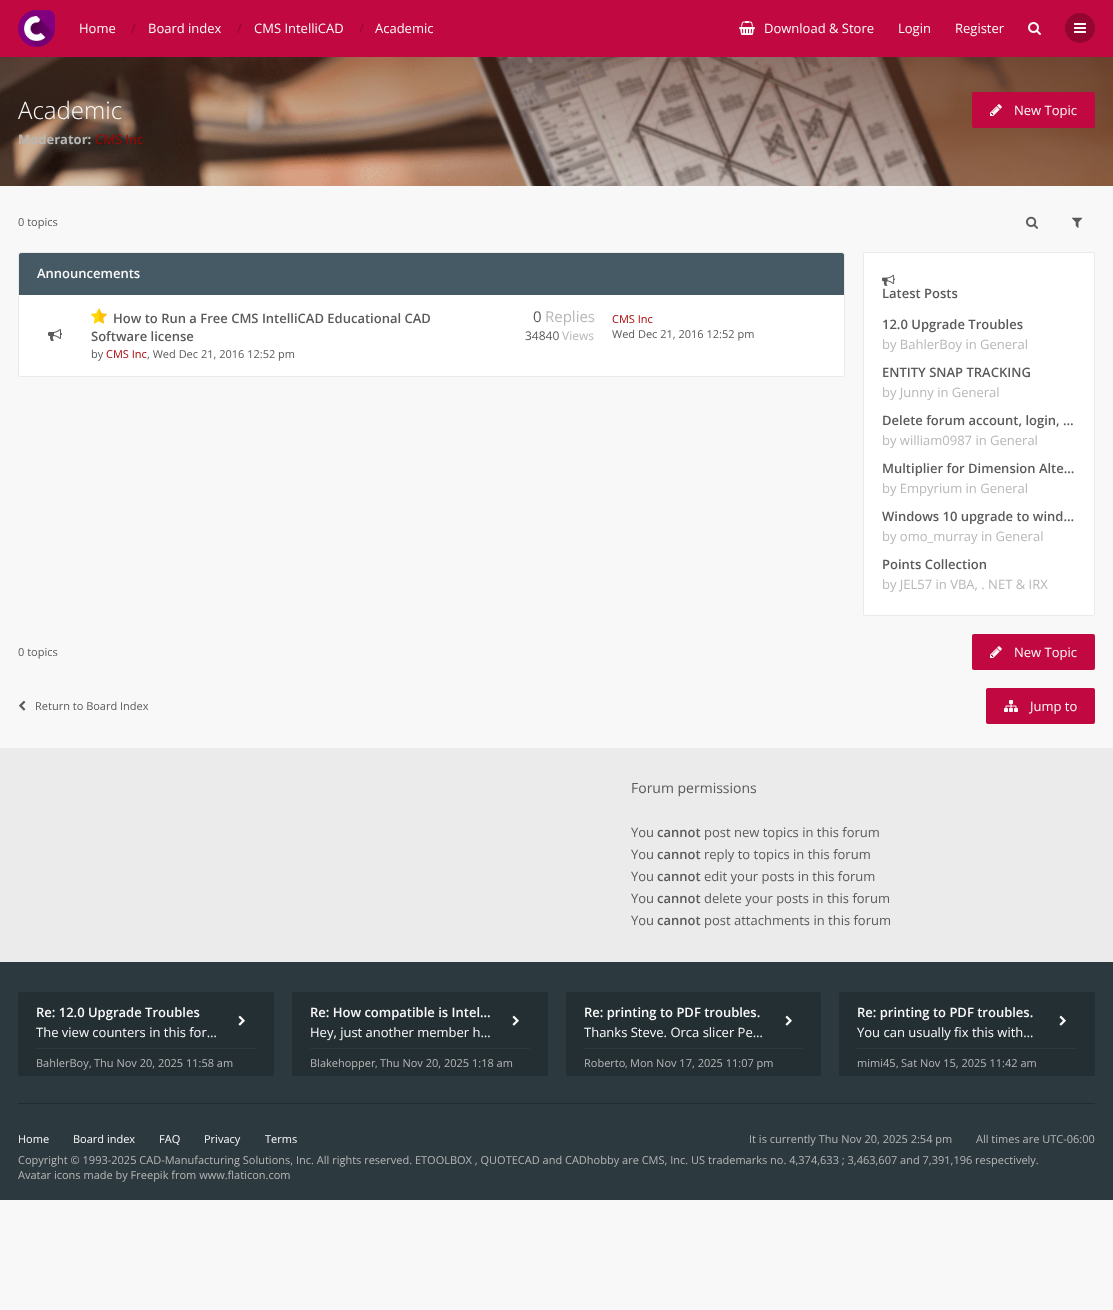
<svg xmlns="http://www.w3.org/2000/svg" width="1113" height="1310">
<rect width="100%" height="100%" fill="#f8f8f8"/>
<rect width="1113" height="57" fill="#c10841"/>
<image x="18" y="10" width="37" height="37" href="media/1.png"/>
<text x="79" y="33" style="font-family:Open Sans;font-size:13px;fill:#fafafa">Home</text>
<text x="131" y="33" style="font-family:Open Sans;font-size:13px;fill:#930631">/</text>
<text x="148" y="33" style="font-family:Open Sans;font-size:13px;fill:#fafafa">Board index</text>
<text x="237" y="33" style="font-family:Open Sans;font-size:13px;fill:#930631">/</text>
<text x="254" y="33" style="font-family:Open Sans;font-size:13px;fill:#fafafa">CMS IntelliCAD</text>
<text x="359" y="33" style="font-family:Open Sans;font-size:13px;fill:#930631">/</text>
<text x="375" y="33" style="font-family:Open Sans;font-size:13px;fill:#fafafa">Academic</text>
<image x="739" y="21" width="16" height="14" href="media/2.png"/>
<text x="764" y="33" style="font-family:Open Sans;font-size:13px;fill:#fafafa">Download &amp; Store</text>
<text x="898" y="33" style="font-family:Open Sans;font-size:13px;fill:#fafafa">Login</text>
<text x="955" y="33" style="font-family:Open Sans;font-size:13px;fill:#fafafa">Register</text>
<image x="1028" y="22" width="13" height="13" href="media/3.png"/>
<circle cx="1080" cy="28" r="15" fill="#930631"/>
<image x="1074" y="23" width="12" height="10" href="media/4.png"/>
<image x="0" y="57" width="1113" height="129" href="media/5.png"/>
<text x="18" y="119" style="font-family:Open Sans;font-size:24px;font-weight:300;fill:#fafafa">Academic</text>
<text x="18" y="144" style="font-family:Open Sans;font-size:13px;font-weight:bold;fill:#b7b7b7">Moderator:</text>
<text x="95" y="144" style="font-family:Open Sans;font-size:13px;fill:#a00">CMS Inc</text>
<rect x="972" y="92" width="123" height="36" rx="2" fill="#c10841"/>
<image x="990" y="104" width="12" height="12" href="media/6.png"/>
<text x="1014" y="115" style="font-family:Open Sans;font-size:13px;fill:#fafafa">New Topic</text>
<text x="18" y="226" style="font-family:Open Sans;font-size:11px;fill:#5a5a5a">0 topics</text>
<image x="1026" y="216" width="12" height="13" href="media/7.png"/>
<image x="1072" y="217" width="11" height="11" href="media/8.png"/>
<rect x="18.5" y="252.5" width="826" height="124" rx="1.5" fill="none" stroke="#eaeaea"/>
<path d="M21 253h821c1 0 2 1 2 2v40h-825v-40c0-1 1-2 2-2z" fill="#455a64"/>
<text x="37" y="278" style="font-family:Open Sans;font-size:13px;font-weight:600;fill:#fafafa">Announcements</text>
<path d="M19 295h825v79c0 1-1 2-2 2h-821c-1 0-2-1-2-2z" fill="#fff"/>
<image x="48" y="329" width="14" height="12" href="media/9.png"/>
<image x="91" y="308" width="16" height="16" href="media/10.png"/>
<text x="113" y="323" style="font-family:Open Sans;font-size:13px;font-weight:600;fill:#5a5a5a">How to Run a Free CMS IntelliCAD Educational CAD</text>
<text x="91" y="341" style="font-family:Open Sans;font-size:13px;font-weight:600;fill:#5a5a5a">Software license</text>
<text x="91" y="358" style="font-family:Open Sans;font-size:11px;fill:#5a5a5a">by</text>
<text x="106" y="358" style="font-family:Open Sans;font-size:11px;fill:#a00">CMS Inc</text>
<text x="147" y="358" style="font-family:Open Sans;font-size:11px;fill:#5a5a5a">, Wed Dec 21, 2016 12:52 pm</text>
<text x="533" y="322" style="font-family:Open Sans;font-size:15px;fill:#5a5a5a">0</text>
<text x="545" y="322" style="font-family:Open Sans;font-size:15px;fill:#b7b7b7">Replies</text>
<text x="525" y="340" style="font-family:Open Sans;font-size:12px;fill:#5a5a5a">34840</text>
<text x="562" y="340" style="font-family:Open Sans;font-size:12px;fill:#b7b7b7">Views</text>
<text x="612" y="323" style="font-family:Open Sans;font-size:11px;fill:#a00">CMS Inc</text>
<text x="612" y="338" style="font-family:Open Sans;font-size:11px;fill:#5a5a5a">Wed Dec 21, 2016 12:52 pm</text>
<rect x="863.5" y="252.5" width="231" height="363" rx="1.5" fill="#fff" stroke="#eaeaea"/>
<image x="882" y="274" width="13" height="12" href="media/11.png"/>
<text x="882" y="298" style="font-family:Open Sans;font-size:13px;font-weight:600;fill:#5a5a5a">Latest Posts</text>
<text x="882" y="329" style="font-family:Open Sans;font-size:13px;font-weight:600;fill:#5a5a5a">12.0 Upgrade Troubles</text>
<text x="882" y="349" style="font-family:Open Sans;font-size:13px;fill:#b7b7b7">by BahlerBoy in General</text>
<text x="882" y="377" style="font-family:Open Sans;font-size:13px;font-weight:600;fill:#5a5a5a">ENTITY SNAP TRACKING</text>
<text x="882" y="397" style="font-family:Open Sans;font-size:13px;fill:#b7b7b7">by Junny in General</text>
<text x="882" y="425" style="font-family:Open Sans;font-size:13px;font-weight:600;fill:#5a5a5a">Delete forum account, login, …</text>
<text x="882" y="445" style="font-family:Open Sans;font-size:13px;fill:#b7b7b7">by william0987 in General</text>
<text x="882" y="473" style="font-family:Open Sans;font-size:13px;font-weight:600;fill:#5a5a5a">Multiplier for Dimension Alte…</text>
<text x="882" y="493" style="font-family:Open Sans;font-size:13px;fill:#b7b7b7">by Empyrium in General</text>
<text x="882" y="521" style="font-family:Open Sans;font-size:13px;font-weight:600;fill:#5a5a5a">Windows 10 upgrade to wind…</text>
<text x="882" y="541" style="font-family:Open Sans;font-size:13px;fill:#b7b7b7">by omo_murray in General</text>
<text x="882" y="569" style="font-family:Open Sans;font-size:13px;font-weight:600;fill:#5a5a5a">Points Collection</text>
<text x="882" y="589" style="font-family:Open Sans;font-size:13px;fill:#b7b7b7">by JEL57 in VBA, . NET &amp; IRX</text>
<text x="18" y="656" style="font-family:Open Sans;font-size:11px;fill:#5a5a5a">0 topics</text>
<rect x="972" y="634" width="123" height="36" rx="2" fill="#c10841"/>
<image x="990" y="646" width="12" height="12" href="media/6.png"/>
<text x="1014" y="657" style="font-family:Open Sans;font-size:13px;fill:#fafafa">New Topic</text>
<image x="19" y="700" width="7" height="11" href="media/12.png"/>
<text x="35" y="710" style="font-family:Open Sans;font-size:11px;fill:#5a5a5a">Return to Board Index</text>
<rect x="986" y="688" width="109" height="36" rx="2" fill="#c10841"/>
<image x="1004" y="700" width="14" height="12" href="media/13.png"/>
<text x="1030" y="711" style="font-family:Open Sans;font-size:13px;fill:#fafafa">Jump to</text>
<rect y="748" width="1113" height="214" fill="#ebebeb"/>
<text x="631" y="793" style="font-family:Open Sans;font-size:14px;fill:#5a5a5a">Forum permissions</text>
<text x="631" y="837" style="font-family:Open Sans;font-size:13px;fill:#5a5a5a">You</text>
<text x="657" y="837" style="font-family:Open Sans;font-size:13px;font-weight:600;fill:#5a5a5a">cannot</text>
<text x="704" y="837" style="font-family:Open Sans;font-size:13px;fill:#5a5a5a">post new topics in this forum</text>
<text x="631" y="859" style="font-family:Open Sans;font-size:13px;fill:#5a5a5a">You</text>
<text x="657" y="859" style="font-family:Open Sans;font-size:13px;font-weight:600;fill:#5a5a5a">cannot</text>
<text x="704" y="859" style="font-family:Open Sans;font-size:13px;fill:#5a5a5a">reply to topics in this forum</text>
<text x="631" y="881" style="font-family:Open Sans;font-size:13px;fill:#5a5a5a">You</text>
<text x="657" y="881" style="font-family:Open Sans;font-size:13px;font-weight:600;fill:#5a5a5a">cannot</text>
<text x="704" y="881" style="font-family:Open Sans;font-size:13px;fill:#5a5a5a">edit your posts in this forum</text>
<text x="631" y="903" style="font-family:Open Sans;font-size:13px;fill:#5a5a5a">You</text>
<text x="657" y="903" style="font-family:Open Sans;font-size:13px;font-weight:600;fill:#5a5a5a">cannot</text>
<text x="704" y="903" style="font-family:Open Sans;font-size:13px;fill:#5a5a5a">delete your posts in this forum</text>
<text x="631" y="925" style="font-family:Open Sans;font-size:13px;fill:#5a5a5a">You</text>
<text x="657" y="925" style="font-family:Open Sans;font-size:13px;font-weight:600;fill:#5a5a5a">cannot</text>
<text x="704" y="925" style="font-family:Open Sans;font-size:13px;fill:#5a5a5a">post attachments in this forum</text>
<rect y="962" width="1113" height="238" fill="#2c393f"/>
<rect x="18" y="992" width="256" height="84" rx="2" fill="#242f34"/>
<text x="36" y="1017" style="font-family:Open Sans;font-size:13px;font-weight:600;fill:#fafafa">Re: 12.0 Upgrade Troubles</text>
<text x="36" y="1037" style="font-family:Open Sans;font-size:13px;fill:#fafafa">The view counters in this for…</text>
<rect x="36" y="1048" width="220" height="1" fill="#2c393f"/>
<text x="36" y="1067" style="font-family:Open Sans;font-size:11px;fill:#b7b7b7">BahlerBoy</text>
<text x="89" y="1067" style="font-family:Open Sans;font-size:10px;fill:#b7b7b7">,</text>
<text x="94" y="1067" style="font-family:Open Sans;font-size:11px;fill:#b7b7b7">Thu Nov 20, 2025 11:58 am</text>
<image x="238" y="1015" width="7" height="11" href="media/14.png"/>
<rect x="292" y="992" width="256" height="84" rx="2" fill="#242f34"/>
<text x="310" y="1017" style="font-family:Open Sans;font-size:13px;font-weight:600;fill:#fafafa">Re: How compatible is Intel…</text>
<text x="310" y="1037" style="font-family:Open Sans;font-size:13px;fill:#fafafa">Hey, just another member h…</text>
<rect x="310" y="1048" width="220" height="1" fill="#2c393f"/>
<text x="310" y="1067" style="font-family:Open Sans;font-size:11px;fill:#b7b7b7">Blakehopper</text>
<text x="375" y="1067" style="font-family:Open Sans;font-size:10px;fill:#b7b7b7">,</text>
<text x="380" y="1067" style="font-family:Open Sans;font-size:11px;fill:#b7b7b7">Thu Nov 20, 2025 1:18 am</text>
<image x="512" y="1015" width="7" height="11" href="media/14.png"/>
<rect x="566" y="992" width="255" height="84" rx="2" fill="#242f34"/>
<text x="584" y="1017" style="font-family:Open Sans;font-size:13px;font-weight:600;fill:#fafafa">Re: printing to PDF troubles.</text>
<text x="584" y="1037" style="font-family:Open Sans;font-size:13px;fill:#fafafa">Thanks Steve. Orca slicer Pe…</text>
<rect x="584" y="1048" width="219" height="1" fill="#2c393f"/>
<text x="584" y="1067" style="font-family:Open Sans;font-size:11px;fill:#b7b7b7">Roberto</text>
<text x="625" y="1067" style="font-family:Open Sans;font-size:10px;fill:#b7b7b7">,</text>
<text x="630" y="1067" style="font-family:Open Sans;font-size:11px;fill:#b7b7b7">Mon Nov 17, 2025 11:07 pm</text>
<image x="785" y="1015" width="7" height="11" href="media/14.png"/>
<rect x="839" y="992" width="256" height="84" rx="2" fill="#242f34"/>
<text x="857" y="1017" style="font-family:Open Sans;font-size:13px;font-weight:600;fill:#fafafa">Re: printing to PDF troubles.</text>
<text x="857" y="1037" style="font-family:Open Sans;font-size:13px;fill:#fafafa">You can usually fix this with…</text>
<rect x="857" y="1048" width="220" height="1" fill="#2c393f"/>
<text x="857" y="1067" style="font-family:Open Sans;font-size:11px;fill:#b7b7b7">mimi45</text>
<text x="896" y="1067" style="font-family:Open Sans;font-size:10px;fill:#b7b7b7">,</text>
<text x="901" y="1067" style="font-family:Open Sans;font-size:11px;fill:#b7b7b7">Sat Nov 15, 2025 11:42 am</text>
<image x="1059" y="1015" width="7" height="11" href="media/14.png"/>
<rect x="18" y="1103" width="1077" height="1" fill="#212b30"/>
<text x="18" y="1143" style="font-family:Open Sans;font-size:11px;fill:#fafafa">Home</text>
<text x="73" y="1143" style="font-family:Open Sans;font-size:11px;fill:#fafafa">Board index</text>
<text x="159" y="1143" style="font-family:Open Sans;font-size:11px;fill:#fafafa">FAQ</text>
<text x="204" y="1143" style="font-family:Open Sans;font-size:11px;fill:#fafafa">Privacy</text>
<text x="265" y="1143" style="font-family:Open Sans;font-size:11px;fill:#fafafa">Terms</text>
<text x="749" y="1143" style="font-family:Open Sans;font-size:11px;fill:#b7b7b7">It is currently Thu Nov 20, 2025 2:54 pm</text>
<text x="976" y="1143" style="font-family:Open Sans;font-size:11px;fill:#b7b7b7">All times are UTC-06:00</text>
<text x="18" y="1164" style="font-family:Open Sans;font-size:11px;fill:#b7b7b7">Copyright © 1993-2025 CAD-Manufacturing Solutions, Inc. All rights reserved. ETOOLBOX , QUOTECAD and CADhobby are CMS, Inc. US trademarks no. 4,374,633 ; 3,463,607 and 7,391,196 respectively.</text>
<text x="18" y="1179" style="font-family:Open Sans;font-size:11px;fill:#b7b7b7">Avatar icons made by Freepik from www.flaticon.com</text>
</svg>
